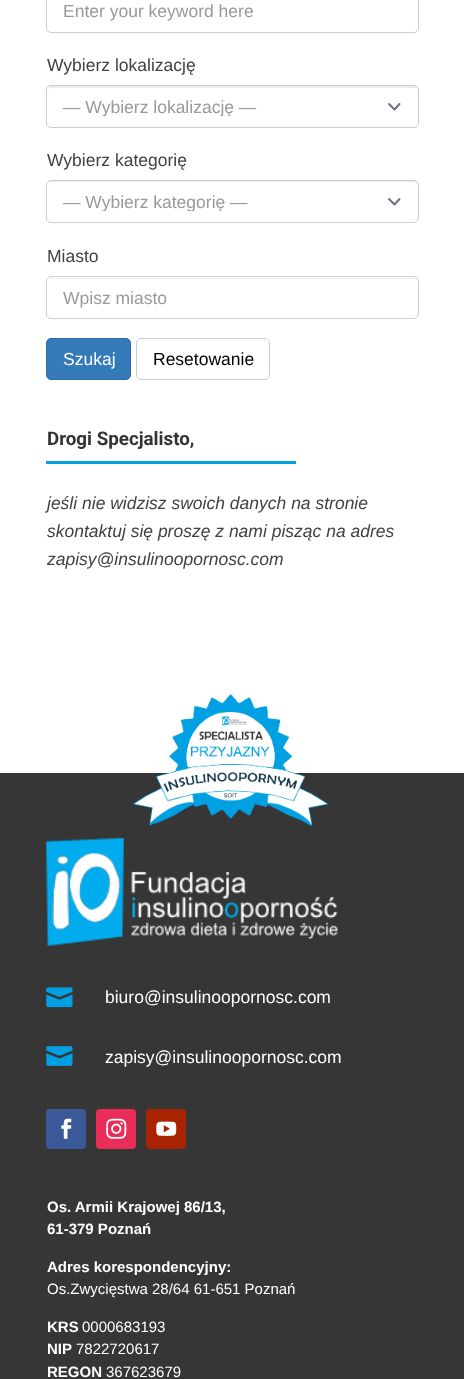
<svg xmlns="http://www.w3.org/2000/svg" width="464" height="1379">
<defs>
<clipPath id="clip1"><rect x="63" y="96" width="305" height="20"/></clipPath>
<clipPath id="clip2"><rect x="63" y="191" width="305" height="20"/></clipPath>
</defs>
<rect width="100%" height="100%" fill="#fff"/>
<rect x="46.5" y="-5.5" width="372" height="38" rx="4.5" fill="none" stroke="#ccc"/>
<text x="63" y="17" style="font-family:Liberation Sans;font-size:17.5px;fill:#999">Enter your keyword here</text>
<text x="47" y="71" style="font-family:Liberation Sans;font-size:17.5px;fill:#424242">Wybierz lokalizację</text>
<path d="M389 104l5.5 5.5l5-5.5" fill="none" stroke="#6b7280" stroke-width="2" stroke-linecap="round" stroke-linejoin="round"/>
<path d="M51 88h363c2 0 4 1 4 3c0-3-1-5-4-5h-362c-3 0-4 2-4 5c0-2 1-3 3-3z" fill="#ececec"/>
<rect x="46.5" y="85.5" width="372" height="42" rx="4.5" fill="none" stroke="#ccc"/>
<g clip-path="url(#clip1)">
<text x="63" y="113" style="font-family:Liberation Sans;font-size:17.5px;fill:#999">— Wybierz lokalizację —</text>
</g>
<text x="47" y="166" style="font-family:Liberation Sans;font-size:17.5px;fill:#424242">Wybierz kategorię</text>
<path d="M389 199l5.5 5.5l5-5.5" fill="none" stroke="#6b7280" stroke-width="2" stroke-linecap="round" stroke-linejoin="round"/>
<path d="M51 182h363c2 0 4 2 4 4c0-3-1-5-4-5h-362c-3 0-4 2-4 5c0-2 1-4 3-4z" fill="#ececec"/>
<rect x="46.5" y="180.5" width="372" height="42" rx="4.5" fill="none" stroke="#ccc"/>
<g clip-path="url(#clip2)">
<text x="63" y="208" style="font-family:Liberation Sans;font-size:17.5px;fill:#999">— Wybierz kategorię —</text>
</g>
<text x="47" y="262" style="font-family:Liberation Sans;font-size:17.5px;fill:#424242">Miasto</text>
<path d="M51 279h363c2 0 4 1 4 3c0-2-2-4-4-4h-362c-1 0-3 1-3 2z" fill="#ececec"/>
<rect x="46.5" y="276.5" width="372" height="42" rx="4.5" fill="none" stroke="#ccc"/>
<text x="63" y="304" style="font-family:Liberation Sans;font-size:17.5px;fill:#999">Wpisz miasto</text>
<rect x="46.5" y="338.5" width="84" height="41" rx="4.5" fill="#337ab7" stroke="#2e6da4"/>
<text x="63" y="365" style="font-family:Liberation Sans;font-size:17.5px;fill:#fff">Szukaj</text>
<rect x="136.5" y="338.5" width="133" height="41" rx="4.5" fill="none" stroke="#ccc"/>
<text x="153" y="365" style="font-family:Liberation Sans;font-size:17.5px;fill:#000">Resetowanie</text>
<text x="47" y="445" style="font-family:Roboto;font-size:18.75px;font-weight:bold;fill:#333">Drogi Specjalisto,</text>
<rect x="46" y="461" width="250" height="3" fill="#01a0e2"/>
<text x="47" y="509" style="font-family:Liberation Sans;font-size:17.5px;font-style:italic;fill:#424242">jeśli nie widzisz swoich danych na stronie</text>
<text x="47" y="537" style="font-family:Liberation Sans;font-size:17.5px;font-style:italic;fill:#424242">skontaktuj się proszę z nami pisząc na adres</text>
<text x="47" y="565" style="font-family:Liberation Sans;font-size:17.5px;font-style:italic;fill:#424242">zapisy@insulinoopornosc.com</text>
<rect y="773" width="464" height="606" fill="#363636"/>
<image x="132" y="694" width="197" height="133" href="media/1.png"/>
<image x="46" y="838" width="292" height="108" href="media/2.png"/>
<image x="46" y="987" width="27" height="21" href="media/3.png"/>
<text x="105" y="1003" style="font-family:Liberation Sans;font-size:17.5px;fill:#fff">biuro@insulinoopornosc.com</text>
<image x="46" y="1046" width="27" height="20" href="media/4.png"/>
<text x="105" y="1063" style="font-family:Liberation Sans;font-size:17.5px;fill:#fff">zapisy@insulinoopornosc.com</text>
<rect x="46" y="1109" width="40" height="40" rx="4" fill="#3b5998"/>
<image x="61" y="1118" width="11" height="21" href="media/5.png"/>
<rect x="96" y="1109" width="40" height="40" rx="4" fill="#ea2c59"/>
<image x="106" y="1118" width="21" height="21" href="media/6.png"/>
<rect x="146" y="1109" width="40" height="40" rx="4" fill="#a82400"/>
<image x="156" y="1121" width="21" height="15" href="media/7.png"/>
<text x="47" y="1212" style="font-family:Liberation Sans;font-size:15px;font-weight:bold;fill:#fff">Os. Armii Krajowej 86/13,</text>
<text x="47" y="1234" style="font-family:Liberation Sans;font-size:15px;font-weight:bold;fill:#fff">61-379 Poznań</text>
<text x="47" y="1272" style="font-family:Liberation Sans;font-size:15px;font-weight:bold;fill:#fff">Adres korespondencyjny:</text>
<text x="47" y="1294" style="font-family:Liberation Sans;font-size:15px;fill:#fff">Os.Zwycięstwa 28/64 61-651 Poznań</text>
<text x="47" y="1332" style="font-family:Liberation Sans;font-size:15px;font-weight:bold;fill:#fff">KRS</text>
<text x="82" y="1332" style="font-family:Liberation Sans;font-size:15px;fill:#fff">0000683193</text>
<text x="47" y="1354" style="font-family:Liberation Sans;font-size:15px;font-weight:bold;fill:#fff">NIP</text>
<text x="76" y="1354" style="font-family:Liberation Sans;font-size:15px;fill:#fff">7822720617</text>
<text x="47" y="1377" style="font-family:Liberation Sans;font-size:15px;font-weight:bold;fill:#fff">REGON</text>
<text x="106" y="1377" style="font-family:Liberation Sans;font-size:15px;fill:#fff">367623679</text>
</svg>
